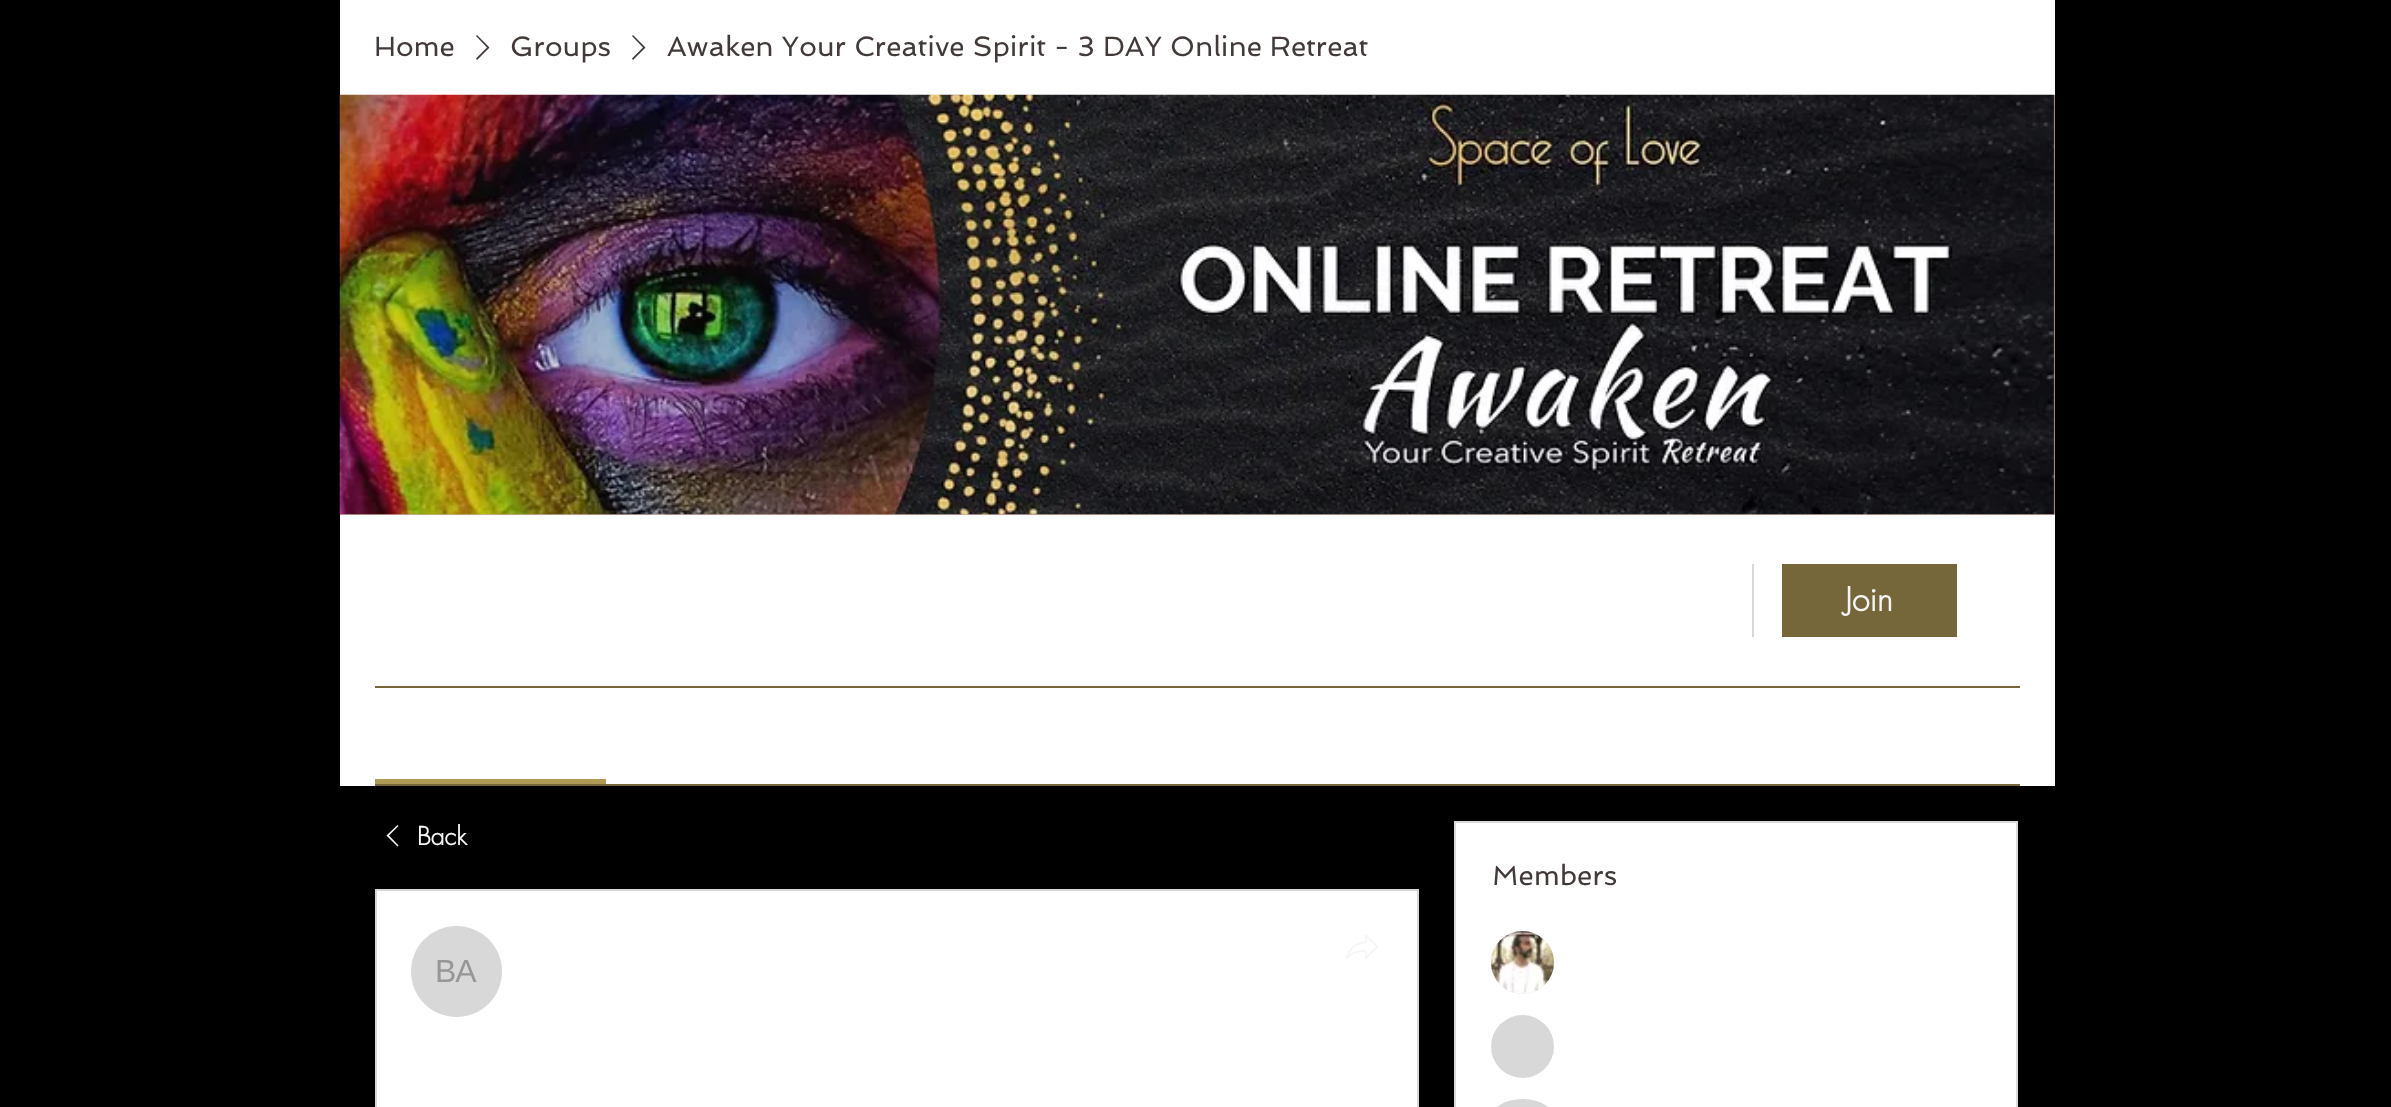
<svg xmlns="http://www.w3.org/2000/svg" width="2391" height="1107">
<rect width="100%" height="100%" fill="#000"/>
<rect x="340" width="1715" height="786" fill="#fff"/>
<text x="374" y="56" style="font-family:Spinnaker;font-size:28px;fill:#413a38">Home</text>
<path d="M477 35l12.5 12.5l-12.5 12.5l-1-1.5l11-11l-11-11.5z" fill="#413a38" fill-rule="evenodd"/>
<text x="510" y="56" style="font-family:Spinnaker;font-size:28px;fill:#413a38">Groups</text>
<path d="M633 35l12.5 12.5l-12.5 12.5l-1-1.5l11-11l-11-11.5z" fill="#413a38" fill-rule="evenodd"/>
<text x="667" y="56" style="font-family:Spinnaker;font-size:28px;fill:#413a38">Awaken Your Creative Spirit - 3 DAY Online Retreat</text>
<rect x="340" y="95" width="1715" height="420" fill="#cdaba0"/>
<image x="339" y="94" width="1716" height="421" href="media/1.png"/>
<rect x="1752" y="564" width="2" height="73" fill="#d9d8d7"/>
<rect x="1782" y="564" width="175" height="73" fill="#756739"/>
<text x="1845" y="611" style="font-family:futura;font-size:32px;font-weight:bold;fill:#f5f5f5">Join</text>
<rect x="375" y="686" width="1645" height="2" fill="#756739"/>
<rect x="375" y="784" width="1645" height="2" fill="#756739"/>
<rect x="375" y="779" width="231" height="5" fill="#af9a55"/>
<path d="M397.5 825l1 1l-9.5 9.5l9.5 10l-1 1l-11-11z" fill="#f5f5f5" fill-rule="evenodd"/>
<text x="417" y="845" style="font-family:futura;font-size:24.5px;font-weight:bold;fill:#f5f5f5">Back</text>
<rect x="376" y="890" width="1042" height="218" fill="#fff" stroke="#d9d8d7" stroke-width="2"/>
<image x="1346" y="935" width="32" height="24" href="media/2.png"/>
<circle cx="456.5" cy="971.5" r="45.5" fill="#d8d8d8"/>
<text x="435" y="982" style="font-family:Liberation Sans;font-size:32px;fill:#979797">ВА</text>
<rect x="1455" y="822" width="562" height="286" fill="#fff" stroke="#d9d8d7" stroke-width="2"/>
<text x="1492" y="885" style="font-family:Spinnaker;font-size:28px;fill:#413a38">Members</text>
<circle cx="1522.5" cy="962.5" r="31.5" fill="#d8d8d8"/>
<image x="1491" y="931" width="63" height="63" href="media/3.png"/>
<circle cx="1522.5" cy="1046.5" r="31.5" fill="#d8d8d8"/>
<rect x="1491" y="1099" width="63" height="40" rx="31.5" fill="#d8d8d8"/>
</svg>
